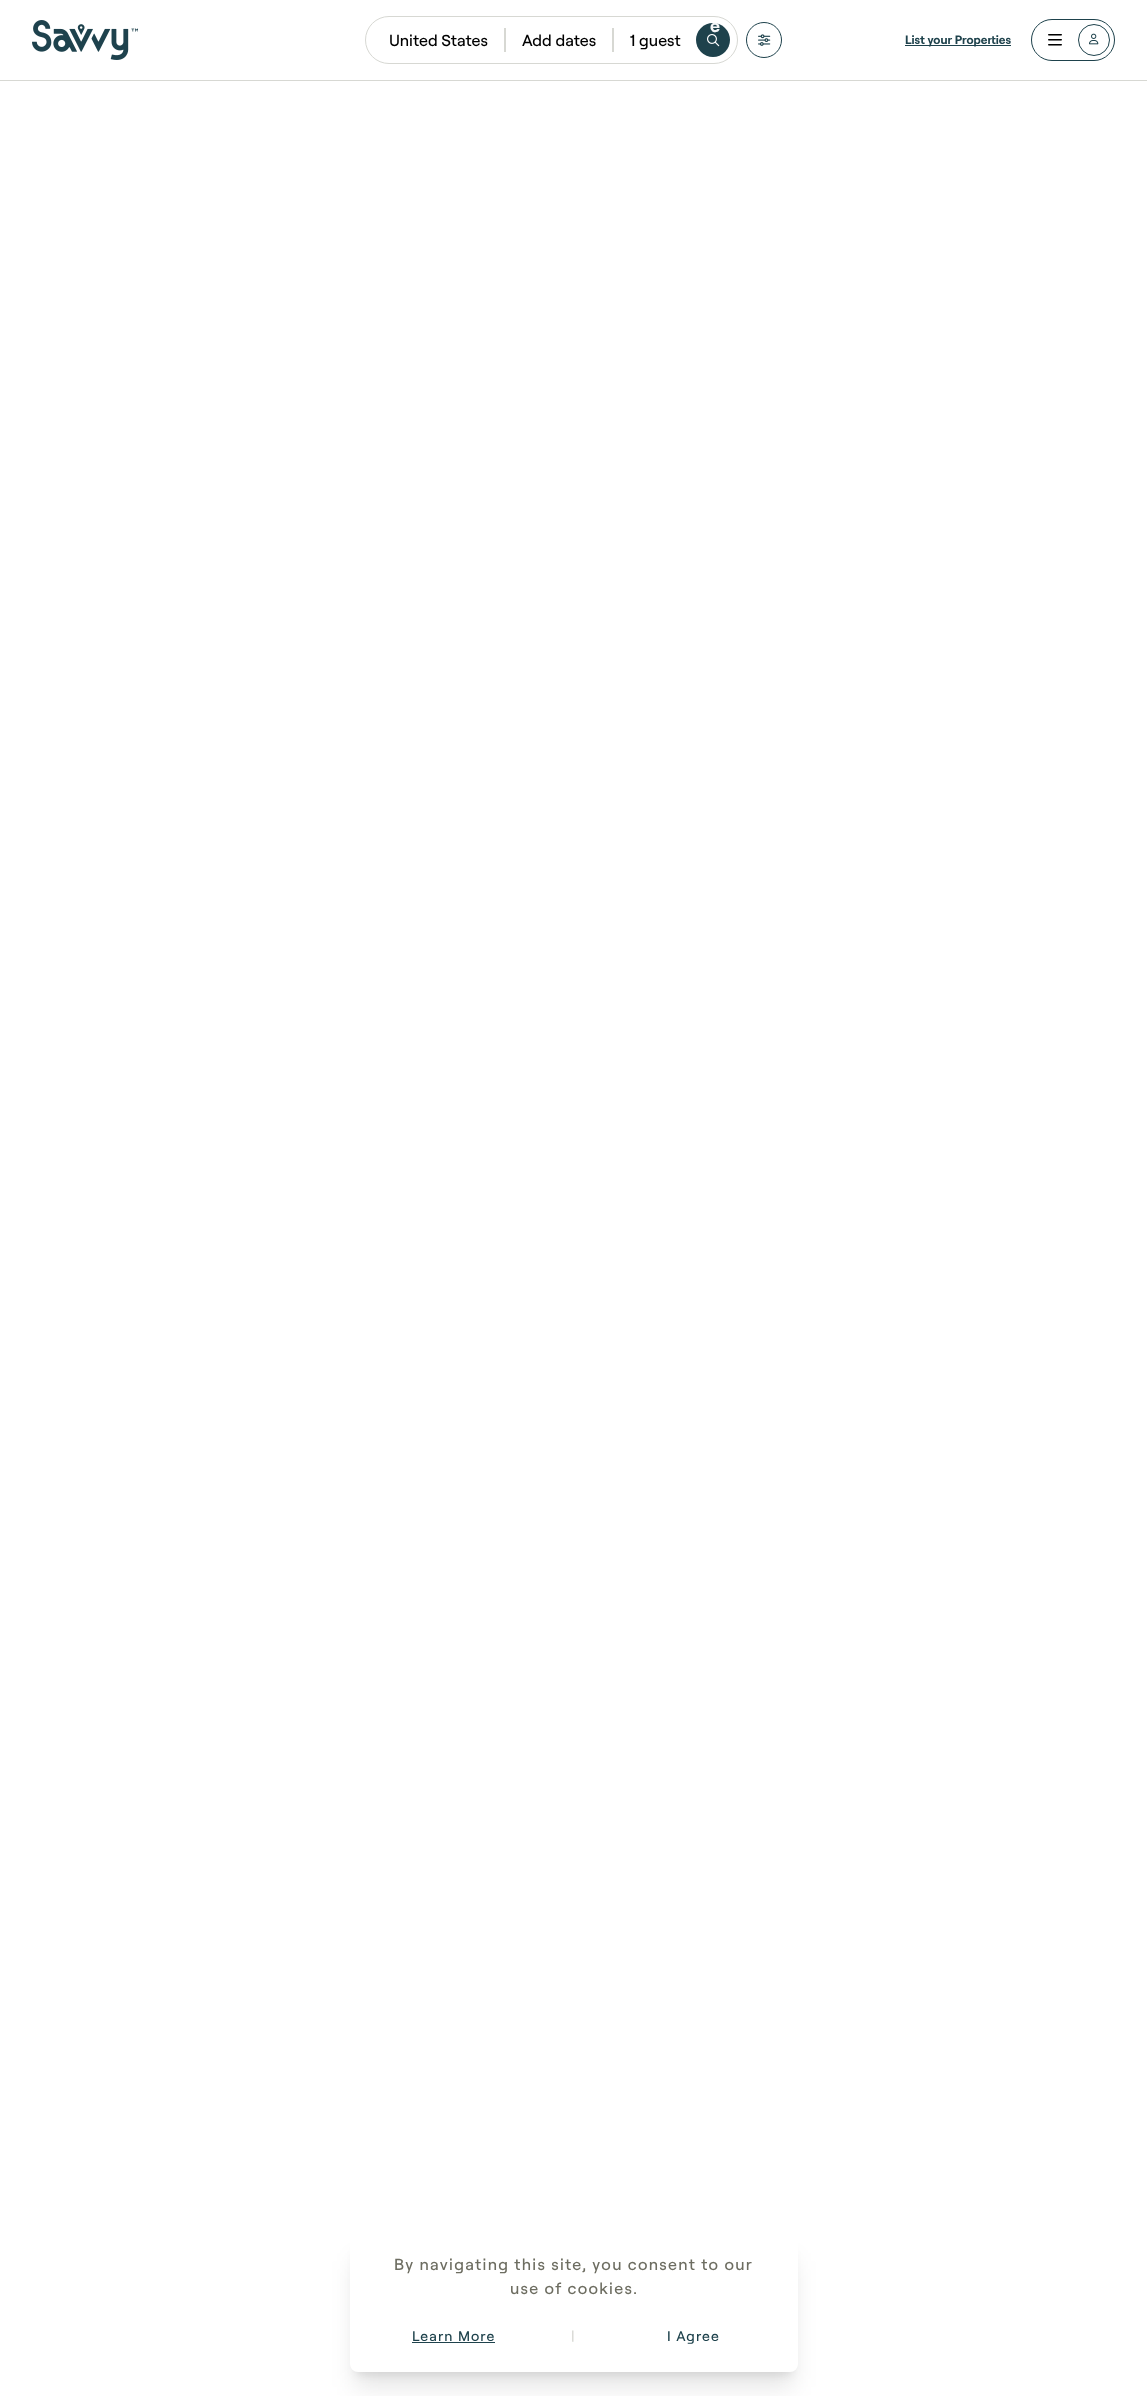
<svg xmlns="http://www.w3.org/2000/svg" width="1147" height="2396">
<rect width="100%" height="100%" fill="#fff"/>
<rect y="80" width="1147" height="1" fill="#d7d8d3"/>
<image x="32" y="20" width="106" height="40" href="media/1.png"/>
<rect x="365.5" y="16.5" width="372" height="47" rx="23.5" fill="none" stroke="#d7d8d3"/>
<circle cx="713" cy="40" r="17" fill="#1e424c"/>
<text x="710" y="32" style="font-family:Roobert;font-size:18px;font-weight:bold;fill:#f4f5f6">e</text>
<rect x="504" y="28" width="2" height="24" fill="#d7d8d3"/>
<text x="389" y="46" style="font-family:Roobert;font-size:16px;font-weight:500;fill:#000">United States</text>
<rect x="612" y="28" width="2" height="24" fill="#d7d8d3"/>
<text x="522" y="46" style="font-family:Roobert;font-size:16px;font-weight:500;fill:#000">Add dates</text>
<text x="630" y="46" style="font-family:Roobert;font-size:16px;font-weight:500;fill:#000">1 guest</text>
<image x="707" y="34" width="13" height="13" href="media/2.png"/>
<circle cx="764" cy="40" r="17.5" fill="none" stroke="#1e424c"/>
<image x="758" y="34" width="13" height="12" href="media/3.png"/>
<rect x="905" y="45" width="106" height="1" fill="#1e424c"/>
<text x="905" y="44" style="font-family:Roobert;font-size:12px;font-weight:bold;fill:#1e424c">List your Properties</text>
<rect x="1031.5" y="19.5" width="83" height="41" rx="20.5" fill="none" stroke="#1e424c"/>
<image x="1048" y="34" width="14" height="12" href="media/4.png"/>
<circle cx="1094" cy="40" r="15.5" fill="none" stroke="#1e424c"/>
<image x="1089" y="33" width="10" height="12" href="media/5.png"/>
<rect x="356" y="2250" width="436" height="124" rx="2" fill="#0000001a" filter="blur(5px)"/>
<rect x="355" y="2261" width="438" height="126" rx="3" fill="#0000001a" filter="blur(12.5px)"/>
<rect x="350" y="2236" width="448" height="136" rx="8" fill="#fff"/>
<text x="394" y="2270" style="font-family:Roobert;font-size:16px;font-weight:500;letter-spacing:1.3px;fill:#6d6d61">By navigating this site, you consent to our</text>
<text x="510" y="2294" style="font-family:Roobert;font-size:16px;font-weight:500;letter-spacing:1.3px;fill:#6d6d61">use of cookies.</text>
<text x="412" y="2341" style="font-family:Roobert;font-size:14px;font-weight:500;letter-spacing:1.1px;fill:#1e424c">Learn More</text>
<rect x="412" y="2342" width="83" height="1" fill="#1e424c"/>
<text x="571" y="2341" style="font-family:Roobert;font-size:14px;font-weight:500;letter-spacing:1.1px;fill:#d7d8d3">|</text>
<text x="667" y="2341" style="font-family:Roobert;font-size:14px;font-weight:500;letter-spacing:1.1px;fill:#1e424c">I Agree</text>
</svg>
